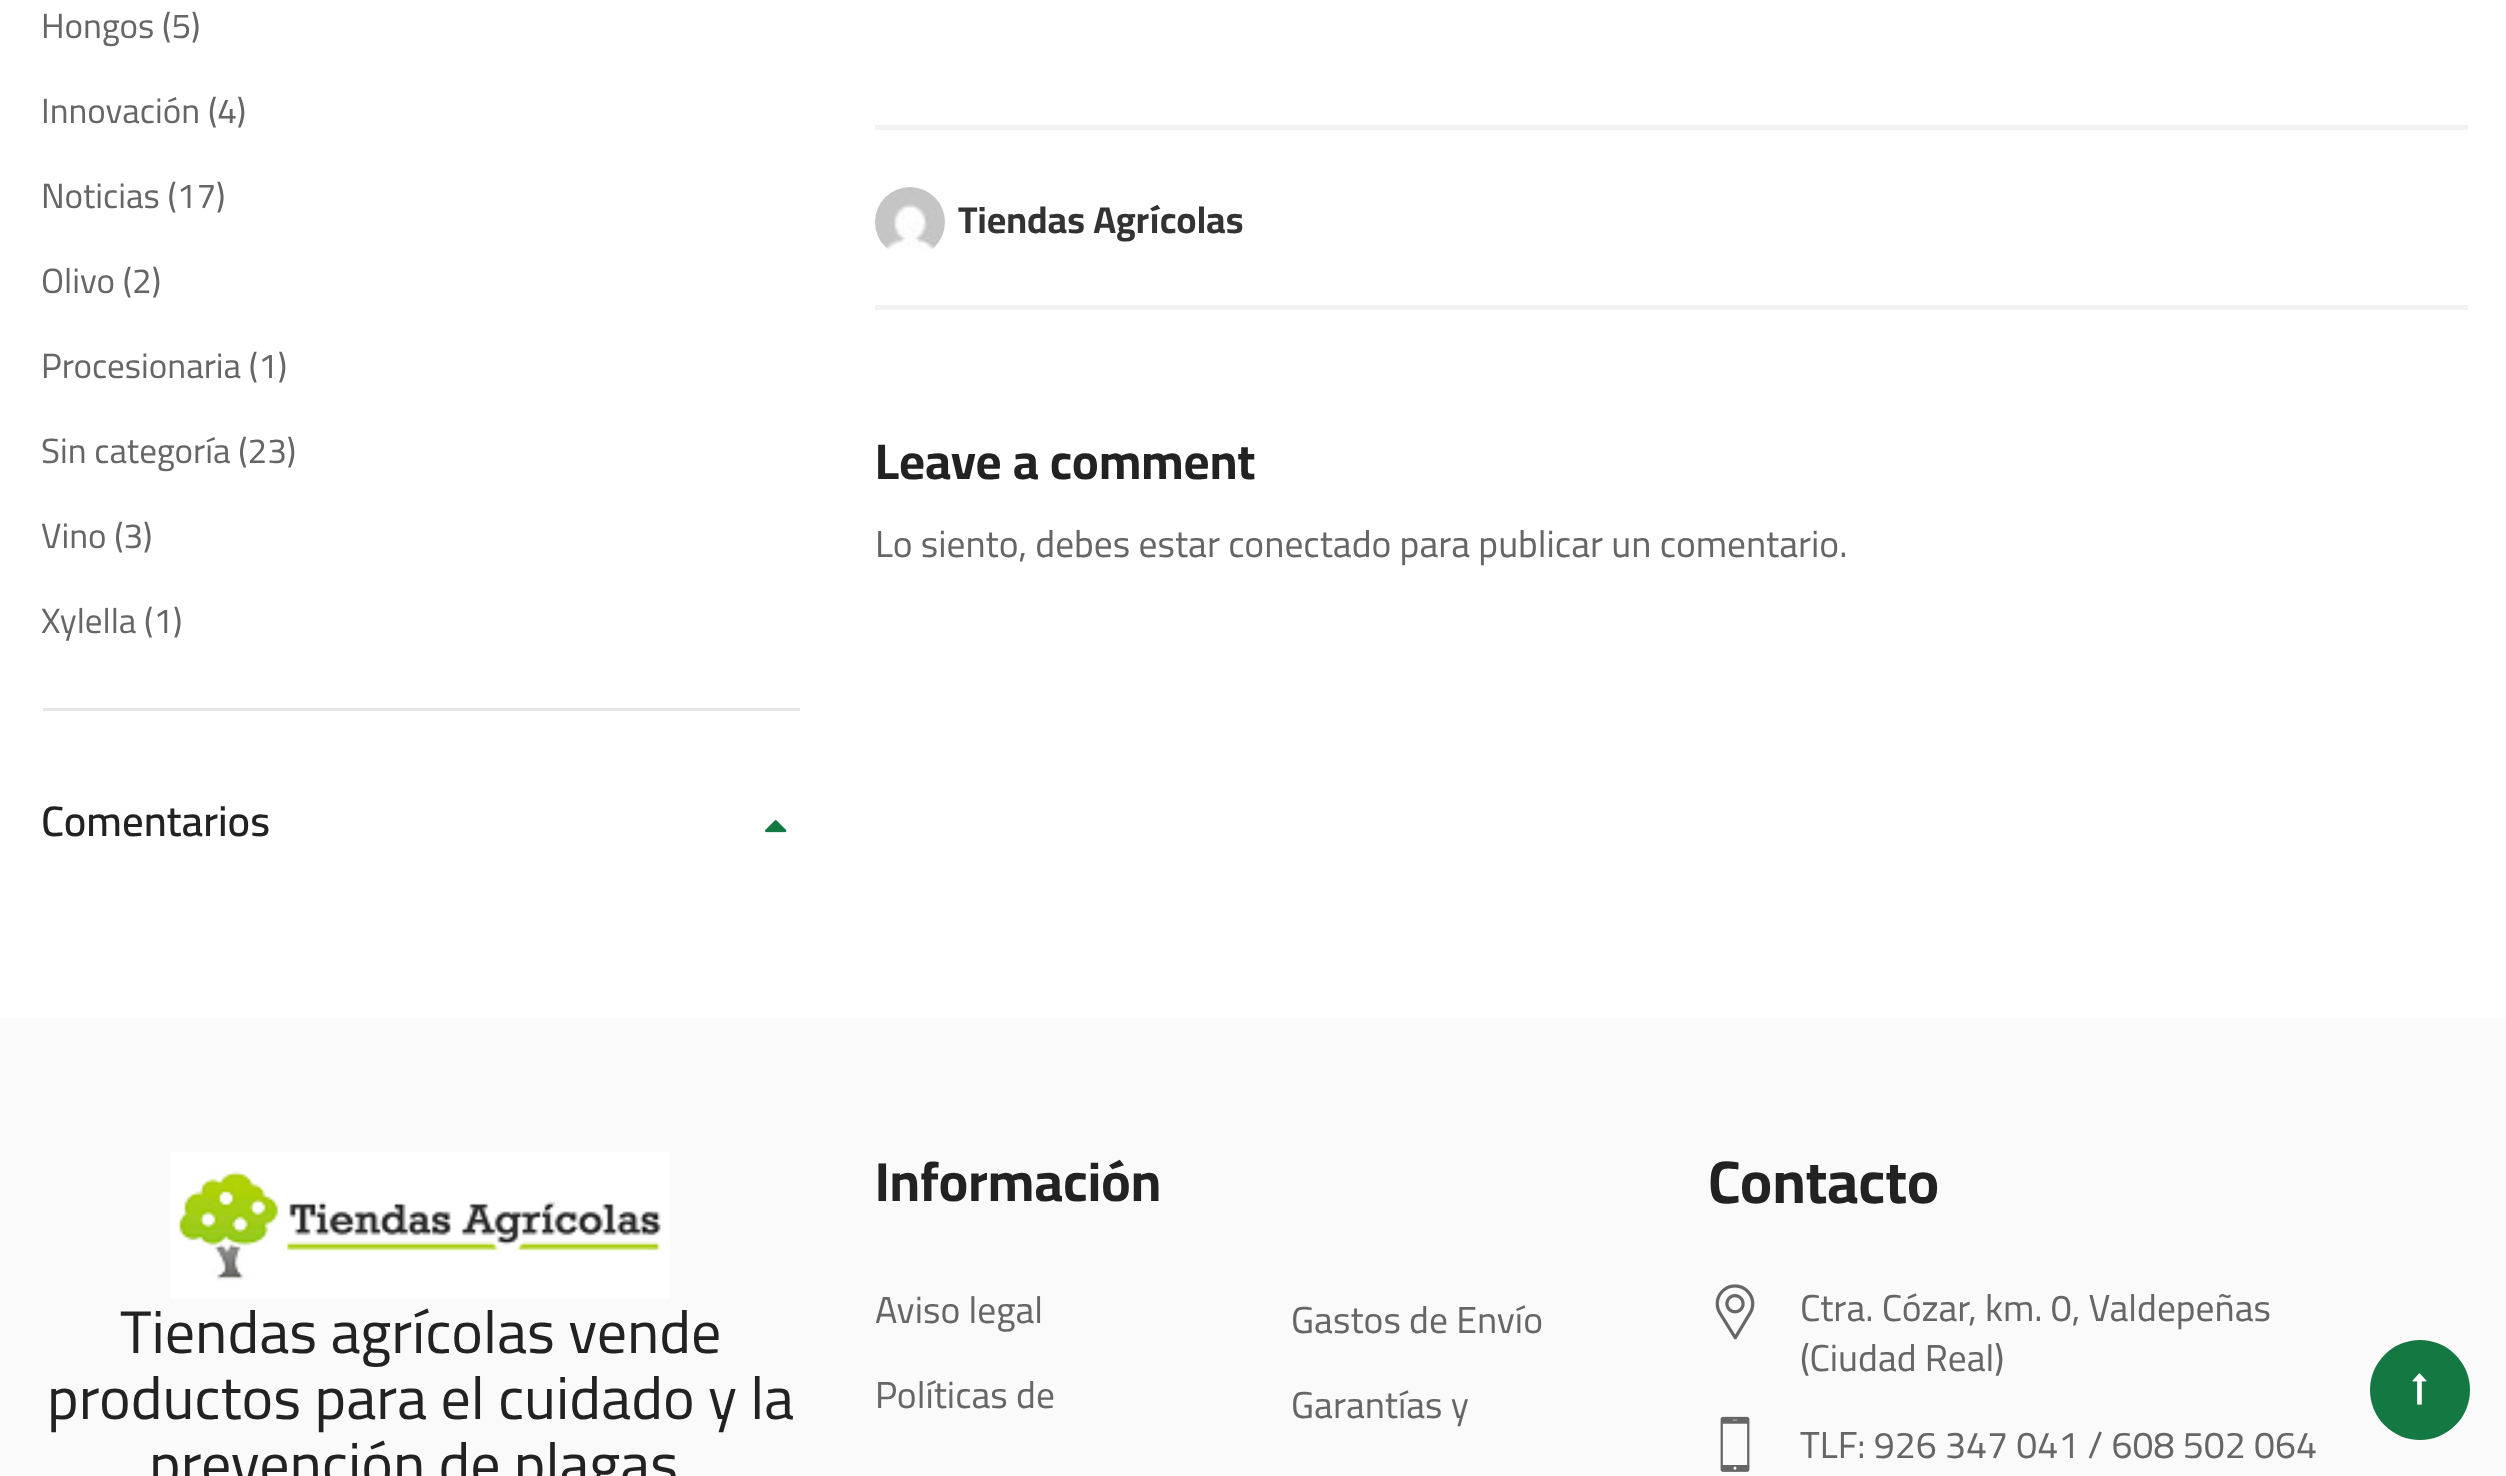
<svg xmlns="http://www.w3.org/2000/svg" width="2506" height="1476">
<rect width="100%" height="100%" fill="#fff"/>
<rect x="43" y="708" width="757" height="3" fill="#e6e6e6"/>
<text x="41" y="38" style="font-family:Cairo;font-size:35px;fill:#666">Hongos (5)</text>
<text x="41" y="123" style="font-family:Cairo;font-size:35px;fill:#666">Innovación (4)</text>
<text x="41" y="208" style="font-family:Cairo;font-size:35px;fill:#666">Noticias (17)</text>
<text x="41" y="293" style="font-family:Cairo;font-size:35px;fill:#666">Olivo (2)</text>
<text x="41" y="378" style="font-family:Cairo;font-size:35px;fill:#666">Procesionaria (1)</text>
<text x="41" y="463" style="font-family:Cairo;font-size:35px;fill:#666">Sin categoría (23)</text>
<text x="41" y="548" style="font-family:Cairo;font-size:35px;fill:#666">Vino (3)</text>
<text x="41" y="633" style="font-family:Cairo;font-size:35px;fill:#666">Xylella (1)</text>
<text x="41" y="836" style="font-family:Cairo;font-size:42.5px;font-weight:600;fill:#222">Comentarios</text>
<image x="765" y="820" width="22" height="13" href="media/1.png"/>
<rect x="875" y="125" width="1593" height="5" fill="#f2f2f2"/>
<rect x="875" y="305" width="1593" height="5" fill="#f2f2f2"/>
<image x="875" y="187" width="70" height="63" href="media/2.png"/>
<text x="958" y="233" style="font-family:Cairo;font-size:37.5px;font-weight:bold;fill:#333">Tiendas Agrícolas</text>
<text x="875" y="479" style="font-family:Cairo;font-size:50px;font-weight:bold;fill:#222">Leave a comment</text>
<text x="875" y="557" style="font-family:Cairo;font-size:37.5px;fill:#666">Lo siento, debes estar conectado para publicar un comentario.</text>
<rect y="1018" width="2506" height="458" fill="#fafafa"/>
<image x="170" y="1152" width="500" height="147" href="media/3.png"/>
<text x="120" y="1353" style="font-family:Cairo;font-size:60px;fill:#222">Tiendas agrícolas vende</text>
<text x="47" y="1419" style="font-family:Cairo;font-size:60px;fill:#222">productos para el cuidado y la</text>
<text x="149" y="1485" style="font-family:Cairo;font-size:60px;fill:#222">prevención de plagas</text>
<text x="875" y="1201" style="font-family:Cairo;font-size:55px;font-weight:bold;fill:#222">Información</text>
<text x="875" y="1323" style="font-family:Cairo;font-size:37.5px;fill:#666">Aviso legal</text>
<text x="875" y="1408" style="font-family:Cairo;font-size:37.5px;fill:#666">Políticas de</text>
<text x="1291" y="1333" style="font-family:Cairo;font-size:37.5px;fill:#666">Gastos de Envío</text>
<text x="1291" y="1418" style="font-family:Cairo;font-size:37.5px;fill:#666">Garantías y</text>
<text x="1708" y="1203" style="font-family:Cairo;font-size:60px;font-weight:bold;fill:#222">Contacto</text>
<image x="1715" y="1284" width="40" height="56" href="media/4.png"/>
<text x="1800" y="1321" style="font-family:Cairo;font-size:37.5px;fill:#666">Ctra. Cózar, km. 0, Valdepeñas</text>
<text x="1800" y="1371" style="font-family:Cairo;font-size:37.5px;fill:#666">(Ciudad Real)</text>
<image x="1720" y="1416" width="30" height="56" href="media/5.png"/>
<text x="1800" y="1458" style="font-family:Cairo;font-size:37.5px;fill:#666">TLF: 926 347 041 / 608 502 064</text>
<circle cx="2420" cy="1390" r="50" fill="#147842"/>
<image x="2412" y="1373" width="15" height="32" href="media/6.png"/>
</svg>
